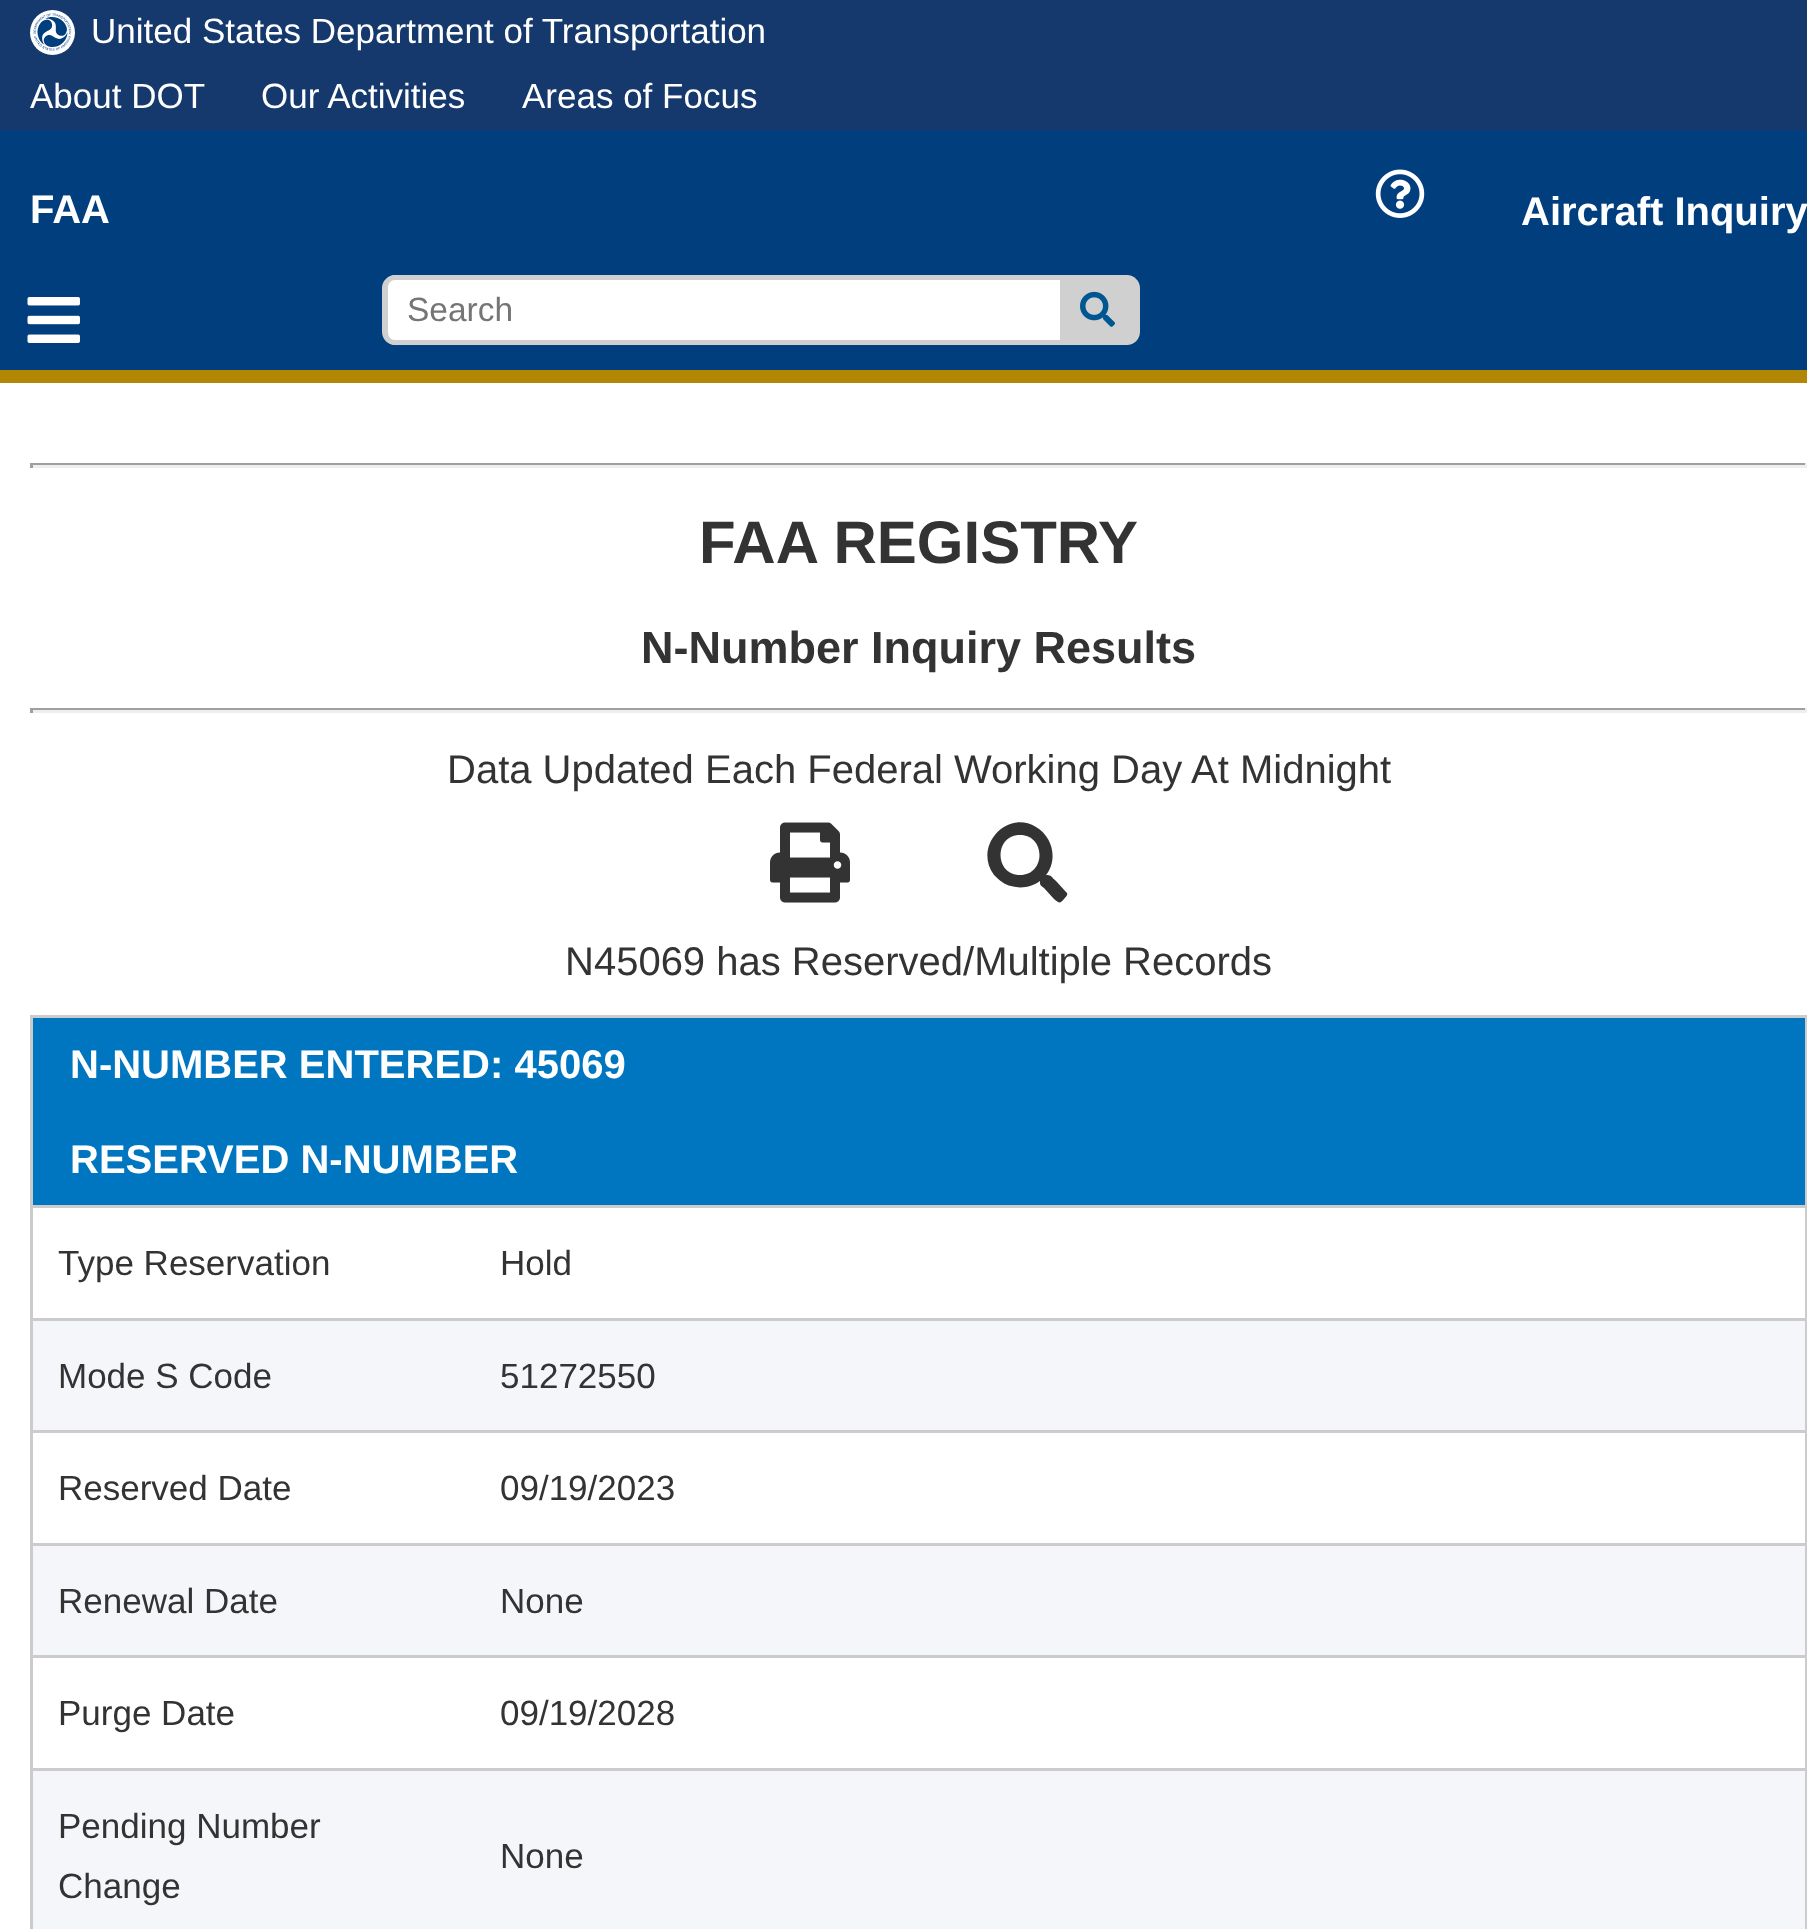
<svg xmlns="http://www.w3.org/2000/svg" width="1807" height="1929">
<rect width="100%" height="100%" fill="#fff"/>
<rect width="1807" height="130" fill="#15396c"/>
<circle cx="52.5" cy="32.5" r="22.5" fill="#fff"/>
<image x="33" y="13" width="39" height="38" href="media/1.png"/>
<text x="91" y="43" style="font-family:Liberation Sans;font-size:35px;fill:#fff">United States Department of Transportation</text>
<text x="30" y="108" style="font-family:Liberation Sans;font-size:35px;fill:#fff">About DOT</text>
<text x="261" y="108" style="font-family:Liberation Sans;font-size:35px;fill:#fff">Our Activities</text>
<text x="522" y="108" style="font-family:Liberation Sans;font-size:35px;fill:#fff">Areas of Focus</text>
<rect y="130" width="1807" height="240" fill="#003e7e"/>
<rect y="370" width="1807" height="13" fill="#b28706"/>
<text x="30" y="223" style="font-family:Liberation Sans;font-size:40px;font-weight:bold;fill:#fff">FAA</text>
<image x="1375" y="169" width="50" height="49" href="media/2.png"/>
<text x="1521" y="225" style="font-family:Liberation Sans;font-size:40px;font-weight:bold;fill:#fff">Aircraft Inquiry</text>
<image x="27" y="297" width="53" height="46" href="media/3.png"/>
<path d="M396 275h677v70h-677c-7 0-13-6-13-13v-44c0-7 6-13 13-13z" fill="#fff"/>
<path d="M395 275h677v70h-677c-7 0-13-6-13-13v-44c0-7 6-13 13-13zm0 5h677v60h-677c-4 0-7-3-7-8v-44c0-5 3-8 7-8z" fill="#d0d0d0" fill-rule="evenodd"/>
<text x="407" y="321" style="font-family:Liberation Sans;font-size:33.5px;fill:#757575">Search</text>
<path d="M1060 275h67c7 0 13 6 13 13v44c0 7-6 13-13 13h-67z" fill="#d0d0d0"/>
<image x="1080" y="291" width="35" height="36" href="media/4.png"/>
<rect x="30" y="463" width="1777" height="2" fill="#9f9f9f"/>
<rect x="1805" y="463" width="2" height="5" fill="#eee"/>
<rect x="30" y="465" width="1777" height="3" fill="#eee"/>
<rect x="30" y="463" width="3" height="5" fill="#9f9f9f"/>
<text x="699" y="563" style="font-family:Liberation Sans;font-size:60px;font-weight:bold;fill:#333">FAA REGISTRY</text>
<text x="641" y="663" style="font-family:Liberation Sans;font-size:45px;font-weight:bold;fill:#333">N-Number Inquiry Results</text>
<rect x="30" y="708" width="1777" height="2" fill="#9f9f9f"/>
<rect x="1805" y="708" width="2" height="5" fill="#eee"/>
<rect x="30" y="710" width="1777" height="3" fill="#eee"/>
<rect x="30" y="708" width="3" height="5" fill="#9f9f9f"/>
<text x="447" y="783" style="font-family:Liberation Sans;font-size:40px;fill:#333">Data Updated Each Federal Working Day At Midnight</text>
<image x="770" y="822" width="80" height="81" href="media/5.png"/>
<path d="M1066 892l-10-11c-5-4-4-6-10-6c12-15 7-38-10-48c-30-18-63 20-42 48c5 5 11 10 17 11c10 3 21 1 29-5c0 4 0 4 4 7l10 11c5 4 6 5 10 0c2-2 5-5 2-7zm-46-17c-26 0-26-40 0-40c26 0 26 40 0 40z" fill="#333"/>
<text x="565" y="975" style="font-family:Liberation Sans;font-size:40px;fill:#333">N45069 has Reserved/Multiple Records</text>
<rect x="30" y="1015" width="1777" height="3" fill="#ccc"/>
<rect x="1805" y="1015" width="2" height="914" fill="#ccc"/>
<rect x="30" y="1015" width="3" height="914" fill="#ccc"/>
<rect x="33" y="1018" width="1772" height="187" fill="#0076c0"/>
<text x="70" y="1078" style="font-family:Liberation Sans;font-size:40px;font-weight:bold;fill:#fff">N-NUMBER ENTERED: 45069</text>
<text x="70" y="1173" style="font-family:Liberation Sans;font-size:40px;font-weight:bold;fill:#fff">RESERVED N-NUMBER</text>
<text x="58" y="1275" style="font-family:Liberation Sans;font-size:35px;fill:#333">Type Reservation</text>
<rect x="30" y="1205" width="1777" height="3" fill="#ccc"/>
<text x="500" y="1275" style="font-family:Liberation Sans;font-size:35px;fill:#333">Hold</text>
<rect x="33" y="1321" width="1772" height="109" fill="#f4f6f9"/>
<text x="58" y="1388" style="font-family:Liberation Sans;font-size:35px;fill:#333">Mode S Code</text>
<rect x="30" y="1318" width="1777" height="3" fill="#ccc"/>
<text x="500" y="1388" style="font-family:Liberation Sans;font-size:35px;fill:#333">51272550</text>
<text x="58" y="1500" style="font-family:Liberation Sans;font-size:35px;fill:#333">Reserved Date</text>
<rect x="30" y="1430" width="1777" height="3" fill="#ccc"/>
<text x="500" y="1500" style="font-family:Liberation Sans;font-size:35px;fill:#333">09/19/2023</text>
<rect x="33" y="1546" width="1772" height="109" fill="#f4f6f9"/>
<text x="58" y="1613" style="font-family:Liberation Sans;font-size:35px;fill:#333">Renewal Date</text>
<rect x="30" y="1543" width="1777" height="3" fill="#ccc"/>
<text x="500" y="1613" style="font-family:Liberation Sans;font-size:35px;fill:#333">None</text>
<text x="58" y="1725" style="font-family:Liberation Sans;font-size:35px;fill:#333">Purge Date</text>
<rect x="30" y="1655" width="1777" height="3" fill="#ccc"/>
<text x="500" y="1725" style="font-family:Liberation Sans;font-size:35px;fill:#333">09/19/2028</text>
<rect x="33" y="1771" width="1772" height="158" fill="#f4f6f9"/>
<text x="58" y="1838" style="font-family:Liberation Sans;font-size:35px;fill:#333">Pending Number</text>
<text x="58" y="1898" style="font-family:Liberation Sans;font-size:35px;fill:#333">Change</text>
<rect x="30" y="1768" width="1777" height="3" fill="#ccc"/>
<text x="500" y="1868" style="font-family:Liberation Sans;font-size:35px;fill:#333">None</text>
</svg>
